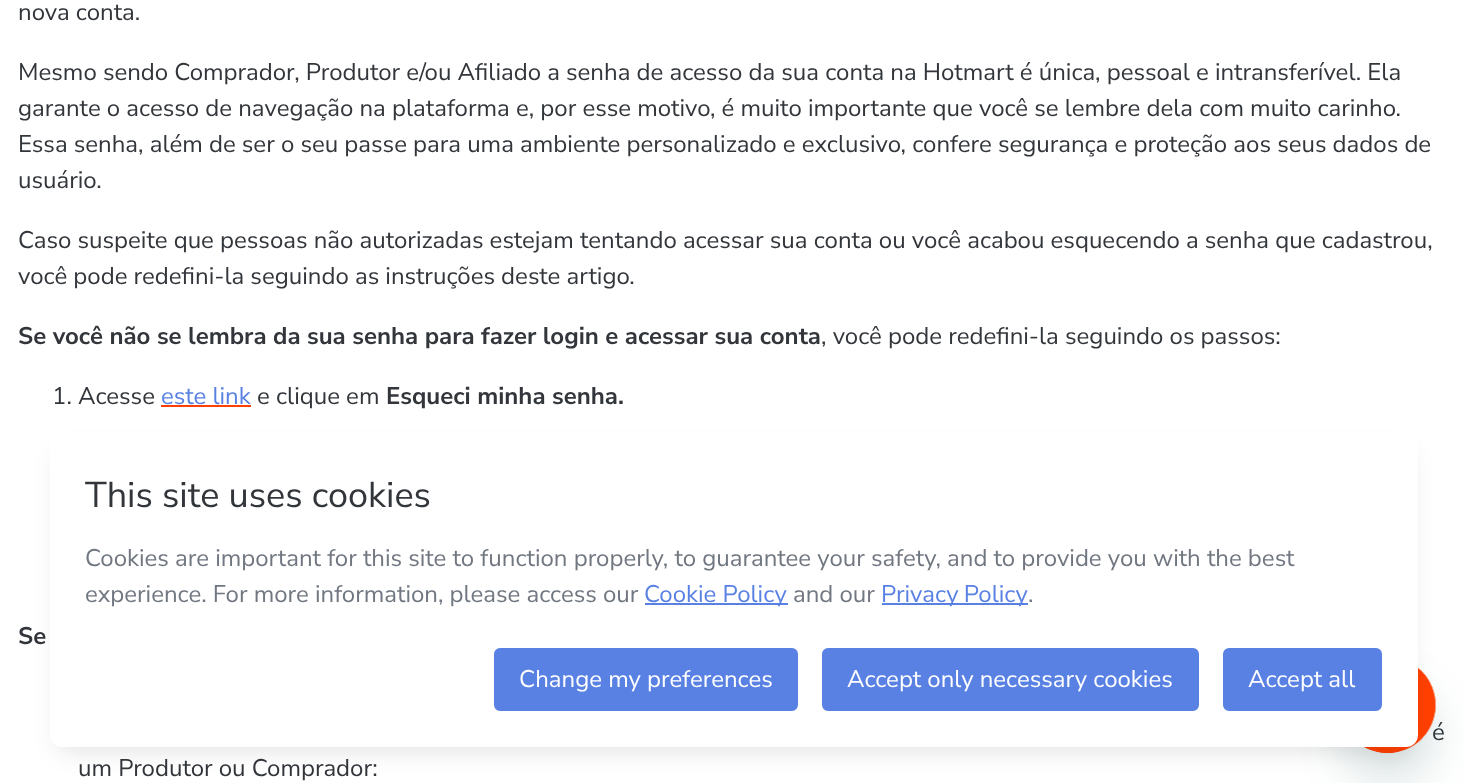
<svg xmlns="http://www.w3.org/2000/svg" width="1465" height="783">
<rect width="100%" height="100%" fill="#fff"/>
<text x="18" y="20" style="font-family:Nunito Sans;font-size:24px;fill:#32363b">nova conta.</text>
<text x="18" y="80" style="font-family:Nunito Sans;font-size:24px;fill:#32363b">Mesmo sendo Comprador, Produtor e/ou Afiliado a senha de acesso da sua conta na Hotmart é única, pessoal e intransferível. Ela</text>
<text x="18" y="116" style="font-family:Nunito Sans;font-size:24px;fill:#32363b">garante o acesso de navegação na plataforma e, por esse motivo, é muito importante que você se lembre dela com muito carinho.</text>
<text x="18" y="152" style="font-family:Nunito Sans;font-size:24px;fill:#32363b">Essa senha, além de ser o seu passe para uma ambiente personalizado e exclusivo, confere segurança e proteção aos seus dados de</text>
<text x="18" y="188" style="font-family:Nunito Sans;font-size:24px;fill:#32363b">usuário.</text>
<text x="18" y="248" style="font-family:Nunito Sans;font-size:24px;fill:#32363b">Caso suspeite que pessoas não autorizadas estejam tentando acessar sua conta ou você acabou esquecendo a senha que cadastrou,</text>
<text x="18" y="284" style="font-family:Nunito Sans;font-size:24px;fill:#32363b">você pode redefini-la seguindo as instruções deste artigo.</text>
<text x="18" y="344" style="font-family:Nunito Sans;font-size:24px;font-weight:bold;fill:#32363b">Se você não se lembra da sua senha para fazer login e acessar sua conta</text>
<text x="821" y="344" style="font-family:Nunito Sans;font-size:24px;fill:#32363b">, você pode redefini-la seguindo os passos:</text>
<text x="52" y="404" style="font-family:Nunito Sans;font-size:24px;fill:#32363b">1. Acesse</text>
<text x="161" y="404" style="font-family:Nunito Sans;font-size:24px;fill:#5981e3">este link</text>
<rect x="161" y="405" width="90" height="2" fill="#ff4000"/>
<text x="257" y="404" style="font-family:Nunito Sans;font-size:24px;fill:#32363b">e clique em</text>
<text x="386" y="404" style="font-family:Nunito Sans;font-size:24px;font-weight:bold;fill:#32363b">Esqueci minha senha.</text>
<text x="18" y="644" style="font-family:Nunito Sans;font-size:24px;font-weight:bold;fill:#32363b">Se</text>
<text x="1432" y="740" style="font-family:Nunito Sans;font-size:24px;fill:#32363b">é</text>
<text x="78" y="776" style="font-family:Nunito Sans;font-size:24px;fill:#32363b">um Produtor ou Comprador:</text>
<rect x="1340" y="687" width="96" height="96" rx="48" fill="#17494d26" filter="blur(22.5px)"/>
<image x="1364" y="667" width="72" height="86" href="media/1.png"/>
<rect x="59" y="453" width="1350" height="297" rx="3" fill="#0000001f" filter="blur(12px)"/>
<rect x="50" y="432" width="1368" height="315" rx="12" fill="#fff"/>
<text x="85" y="507" style="font-family:Nunito Sans;font-size:36px;fill:#32363b">This site uses cookies</text>
<text x="85" y="566" style="font-family:Nunito Sans;font-size:24px;fill:#707780">Cookies are important for this site to function properly, to guarantee your safety, and to provide you with the best</text>
<text x="85" y="602" style="font-family:Nunito Sans;font-size:24px;fill:#707780">experience. For more information, please access our</text>
<rect x="645" y="603" width="143" height="2" fill="#5981e3"/>
<text x="644" y="602" style="font-family:Nunito Sans;font-size:24px;fill:#5981e3">Cookie Policy</text>
<text x="793" y="602" style="font-family:Nunito Sans;font-size:24px;fill:#707780">and our</text>
<rect x="882" y="603" width="146" height="2" fill="#5981e3"/>
<text x="881" y="602" word-spacing="-1" style="font-family:Nunito Sans;font-size:24px;fill:#5981e3">Privacy Policy</text>
<text x="1028" y="602" style="font-family:Nunito Sans;font-size:24px;fill:#707780">.</text>
<rect x="495" y="649" width="302" height="61" rx="5" fill="#5981e3" stroke="#5981e3" stroke-width="2"/>
<text x="519" y="687" style="font-family:Nunito Sans;font-size:24px;fill:#fff">Change my preferences</text>
<rect x="823" y="649" width="375" height="61" rx="5" fill="#5981e3" stroke="#5981e3" stroke-width="2"/>
<text x="847" y="687" style="font-family:Nunito Sans;font-size:24px;fill:#fff">Accept only necessary cookies</text>
<rect x="1224" y="649" width="157" height="61" rx="5" fill="#5981e3" stroke="#5981e3" stroke-width="2"/>
<text x="1248" y="687" style="font-family:Nunito Sans;font-size:24px;fill:#fff">Accept all</text>
</svg>
